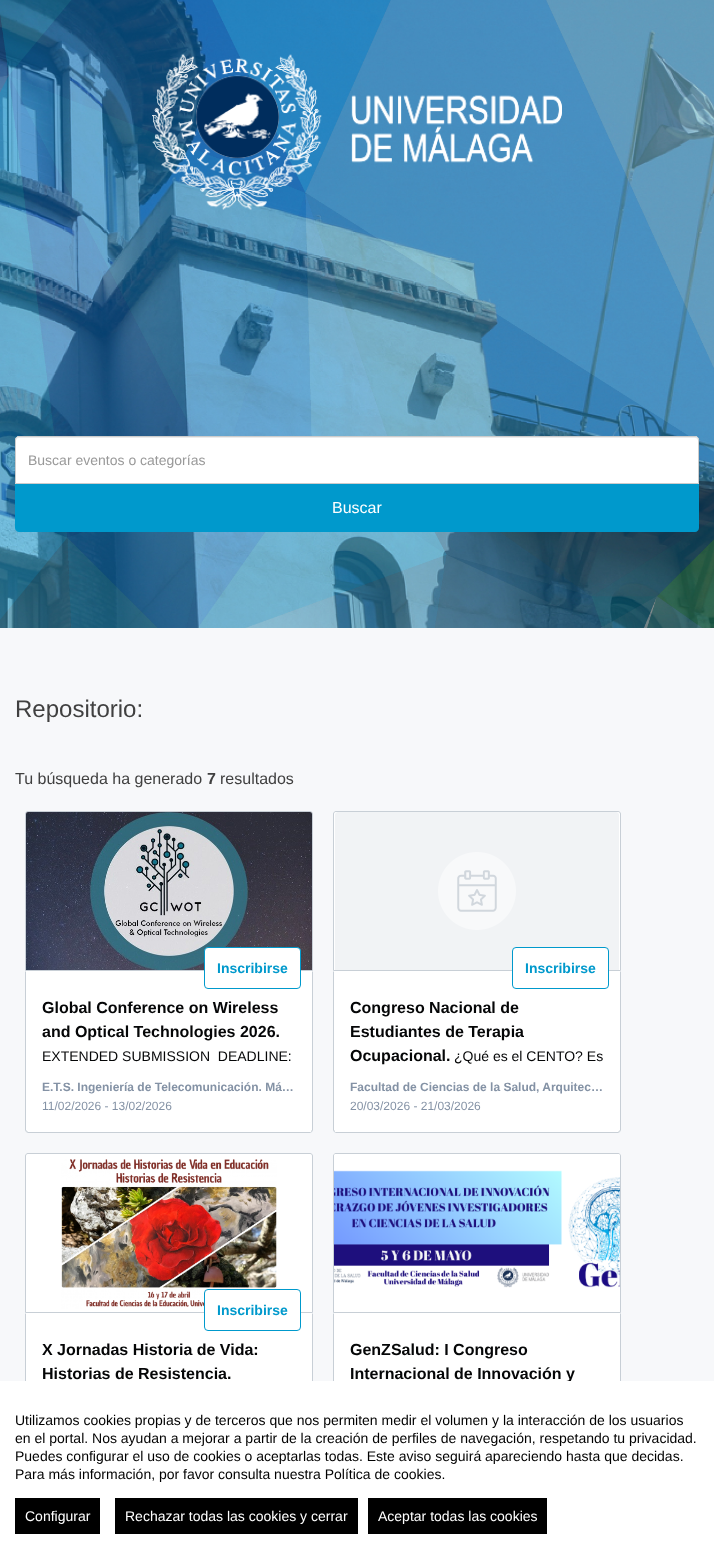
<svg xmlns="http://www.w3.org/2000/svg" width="714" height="1549">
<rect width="100%" height="100%" fill="#f7f8fa"/>
<image x="0" y="0" width="714" height="628" href="media/1.png"/>
<image x="152" y="54" width="410" height="156" href="media/2.png"/>
<path d="M19 436h676c2 0 4 2 4 4v44h-684v-44c0-2 2-4 4-4z" fill="#fff"/>
<path d="M19 438h676c2 0 3 1 3 3v-1c0-2-1-3-3-3h-676c-2 0-3 1-3 3v1c0-2 1-3 3-3z" fill="#ececec"/>
<path d="M19 436.5h676c2 0 3.5 1.5 3.5 3.5v43.5h-683v-43.5c0-2 1.5-3.5 3.5-3.5z" fill="none" stroke="#ccc"/>
<text x="28" y="465" style="font-family:Liberation Sans;font-size:14px;fill:#999">Buscar eventos o categorías</text>
<path d="M15 484h684v44c0 2-2 4-4 4h-676c-2 0-4-2-4-4z" fill="#09c"/>
<text x="332" y="513" style="font-family:Liberation Sans;font-size:16px;fill:#fff">Buscar</text>
<text x="15" y="717" style="font-family:Liberation Sans;font-size:24px;fill:#404040">Repositorio:</text>
<text x="15" y="784" style="font-family:Liberation Sans;font-size:16px;fill:#404040">Tu búsqueda ha generado</text>
<text x="207" y="784" style="font-family:Liberation Sans;font-size:16px;font-weight:bold;fill:#404040">7</text>
<text x="220" y="784" style="font-family:Liberation Sans;font-size:16px;fill:#404040">resultados</text>
<rect x="25" y="811" width="288" height="322" rx="4" fill="#fff"/>
<path d="M28 811.5h282c1.5 0 2.5 1 2.5 2.5v156.5h-287v-156.5c0-1.5 1-2.5 2.5-2.5z" fill="none" stroke="#c8cfd6"/>
<image x="26" y="812" width="286" height="158" href="media/3.png"/>
<rect x="204.5" y="947.5" width="96" height="41" rx="3.5" fill="#fff" stroke="#09c"/>
<text x="217" y="973" style="font-family:Liberation Sans;font-size:14px;font-weight:bold;fill:#09c">Inscribirse</text>
<path d="M313 971l-1 1v158l-1 1l1 1l1-2z" fill="#c8cfd6"/>
<path d="M28 1133h282l2-1l-1-1v1h-236h-47l-1-1l-1 1z" fill="#c8cfd6"/>
<path d="M26 972l-1-1v159l1 2l1-1l-1-1z" fill="#c8cfd6"/>
<text x="42" y="1013" style="font-family:Liberation Sans;font-size:16px;font-weight:bold;fill:#050607">Global Conference on Wireless</text>
<text x="42" y="1037" style="font-family:Liberation Sans;font-size:16px;font-weight:bold;fill:#050607">and Optical Technologies 2026.</text>
<text x="42" y="1061" style="font-family:Liberation Sans;font-size:14px;fill:#050607" xml:space="preserve">EXTENDED SUBMISSION  DEADLINE:</text>
<text x="42" y="1091" style="font-family:Liberation Sans;font-size:12px;font-weight:bold;fill:#8492a5">E.T.S. Ingeniería de Telecomunicación. Má…</text>
<text x="42" y="1110" style="font-family:Liberation Sans;font-size:12px;fill:#8492a5">11/02/2026 - 13/02/2026</text>
<rect x="333" y="811" width="288" height="322" rx="4" fill="#fff"/>
<path d="M336 811.5h282c1.5 0 2.5 1 2.5 2.5v156.5h-287v-156.5c0-1.5 1-2.5 2.5-2.5z" fill="none" stroke="#c8cfd6"/>
<image x="335" y="812" width="284" height="158" href="media/4.png"/>
<rect x="512.5" y="947.5" width="96" height="41" rx="3.5" fill="#fff" stroke="#09c"/>
<text x="525" y="973" style="font-family:Liberation Sans;font-size:14px;font-weight:bold;fill:#09c">Inscribirse</text>
<path d="M621 971l-1 1v158l-1 1l1 1l1-2z" fill="#c8cfd6"/>
<path d="M336 1133h282l2-1l-1-1l-1 1h-283v-1l-1 1z" fill="#c8cfd6"/>
<path d="M334 972l-1-1v159l1 2l1-1l-1-1z" fill="#c8cfd6"/>
<text x="350" y="1013" style="font-family:Liberation Sans;font-size:16px;font-weight:bold;fill:#050607">Congreso Nacional de</text>
<text x="350" y="1037" style="font-family:Liberation Sans;font-size:16px;font-weight:bold;fill:#050607">Estudiantes de Terapia</text>
<text x="350" y="1061" style="font-family:Liberation Sans;font-size:16px;font-weight:bold;fill:#050607">Ocupacional.</text>
<text x="454" y="1061" style="font-family:Liberation Sans;font-size:14px;fill:#050607">¿Qué es el CENTO? Es</text>
<text x="350" y="1091" style="font-family:Liberation Sans;font-size:12px;font-weight:bold;fill:#8492a5">Facultad de Ciencias de la Salud, Arquitec…</text>
<text x="350" y="1110" style="font-family:Liberation Sans;font-size:12px;fill:#8492a5">20/03/2026 - 21/03/2026</text>
<rect x="25" y="1153" width="288" height="322" rx="4" fill="#fff"/>
<path d="M28 1153.5h282c1.5 0 2.5 1 2.5 2.5v156.5h-287v-156.5c0-1.5 1-2.5 2.5-2.5z" fill="none" stroke="#c8cfd6"/>
<image x="61" y="1159" width="216" height="150" href="media/5.png"/>
<rect x="204.5" y="1289.5" width="96" height="41" rx="3.5" fill="#fff" stroke="#09c"/>
<text x="217" y="1315" style="font-family:Liberation Sans;font-size:14px;font-weight:bold;fill:#09c">Inscribirse</text>
<path d="M313 1313l-1 1v158l-1 1l1 1l1-2z" fill="#c8cfd6"/>
<path d="M26 1314l-1-1v159l1 2l1-1l-1-1z" fill="#c8cfd6"/>
<text x="42" y="1355" style="font-family:Liberation Sans;font-size:16px;font-weight:bold;fill:#050607">X Jornadas Historia de Vida:</text>
<text x="42" y="1379" style="font-family:Liberation Sans;font-size:16px;font-weight:bold;fill:#050607">Historias de Resistencia.</text>
<rect x="333" y="1153" width="288" height="322" rx="4" fill="#fff"/>
<path d="M336 1153.5h282c1.5 0 2.5 1 2.5 2.5v156.5h-287v-156.5c0-1.5 1-2.5 2.5-2.5z" fill="none" stroke="#c8cfd6"/>
<image x="334" y="1154" width="286" height="134" href="media/6.png"/>
<path d="M621 1313l-1 1v158l-1 1l1 1l1-2z" fill="#c8cfd6"/>
<path d="M334 1314l-1-1v159l1 2l1-1l-1-1z" fill="#c8cfd6"/>
<text x="350" y="1355" style="font-family:Liberation Sans;font-size:16px;font-weight:bold;fill:#050607">GenZSalud: I Congreso</text>
<text x="350" y="1379" style="font-family:Liberation Sans;font-size:16px;font-weight:bold;fill:#050607">Internacional de Innovación y</text>
<rect y="1381" width="714" height="168" fill="#fff"/>
<text x="15" y="1425" style="font-family:Liberation Sans;font-size:14px;fill:#000">Utilizamos cookies propias y de terceros que nos permiten medir el volumen y la interacción de los usuarios</text>
<text x="15" y="1443" style="font-family:Liberation Sans;font-size:14px;fill:#000">en el portal. Nos ayudan a mejorar a partir de la creación de perfiles de navegación, respetando tu privacidad.</text>
<text x="15" y="1461" style="font-family:Liberation Sans;font-size:14px;fill:#000">Puedes configurar el uso de cookies o aceptarlas todas. Este aviso seguirá apareciendo hasta que decidas.</text>
<text x="15" y="1479" style="font-family:Liberation Sans;font-size:14px;fill:#000">Para más información, por favor consulta nuestra Política de cookies.</text>
<rect x="15" y="1498" width="85" height="36" fill="#000"/>
<text x="25" y="1521" style="font-family:Liberation Sans;font-size:14px;fill:#fff">Configurar</text>
<rect x="115" y="1498" width="243" height="36" fill="#000"/>
<text x="125" y="1521" style="font-family:Liberation Sans;font-size:14px;fill:#fff">Rechazar todas las cookies y cerrar</text>
<rect x="368" y="1498" width="179" height="36" fill="#000"/>
<text x="378" y="1521" style="font-family:Liberation Sans;font-size:14px;fill:#fff">Aceptar todas las cookies</text>
</svg>
